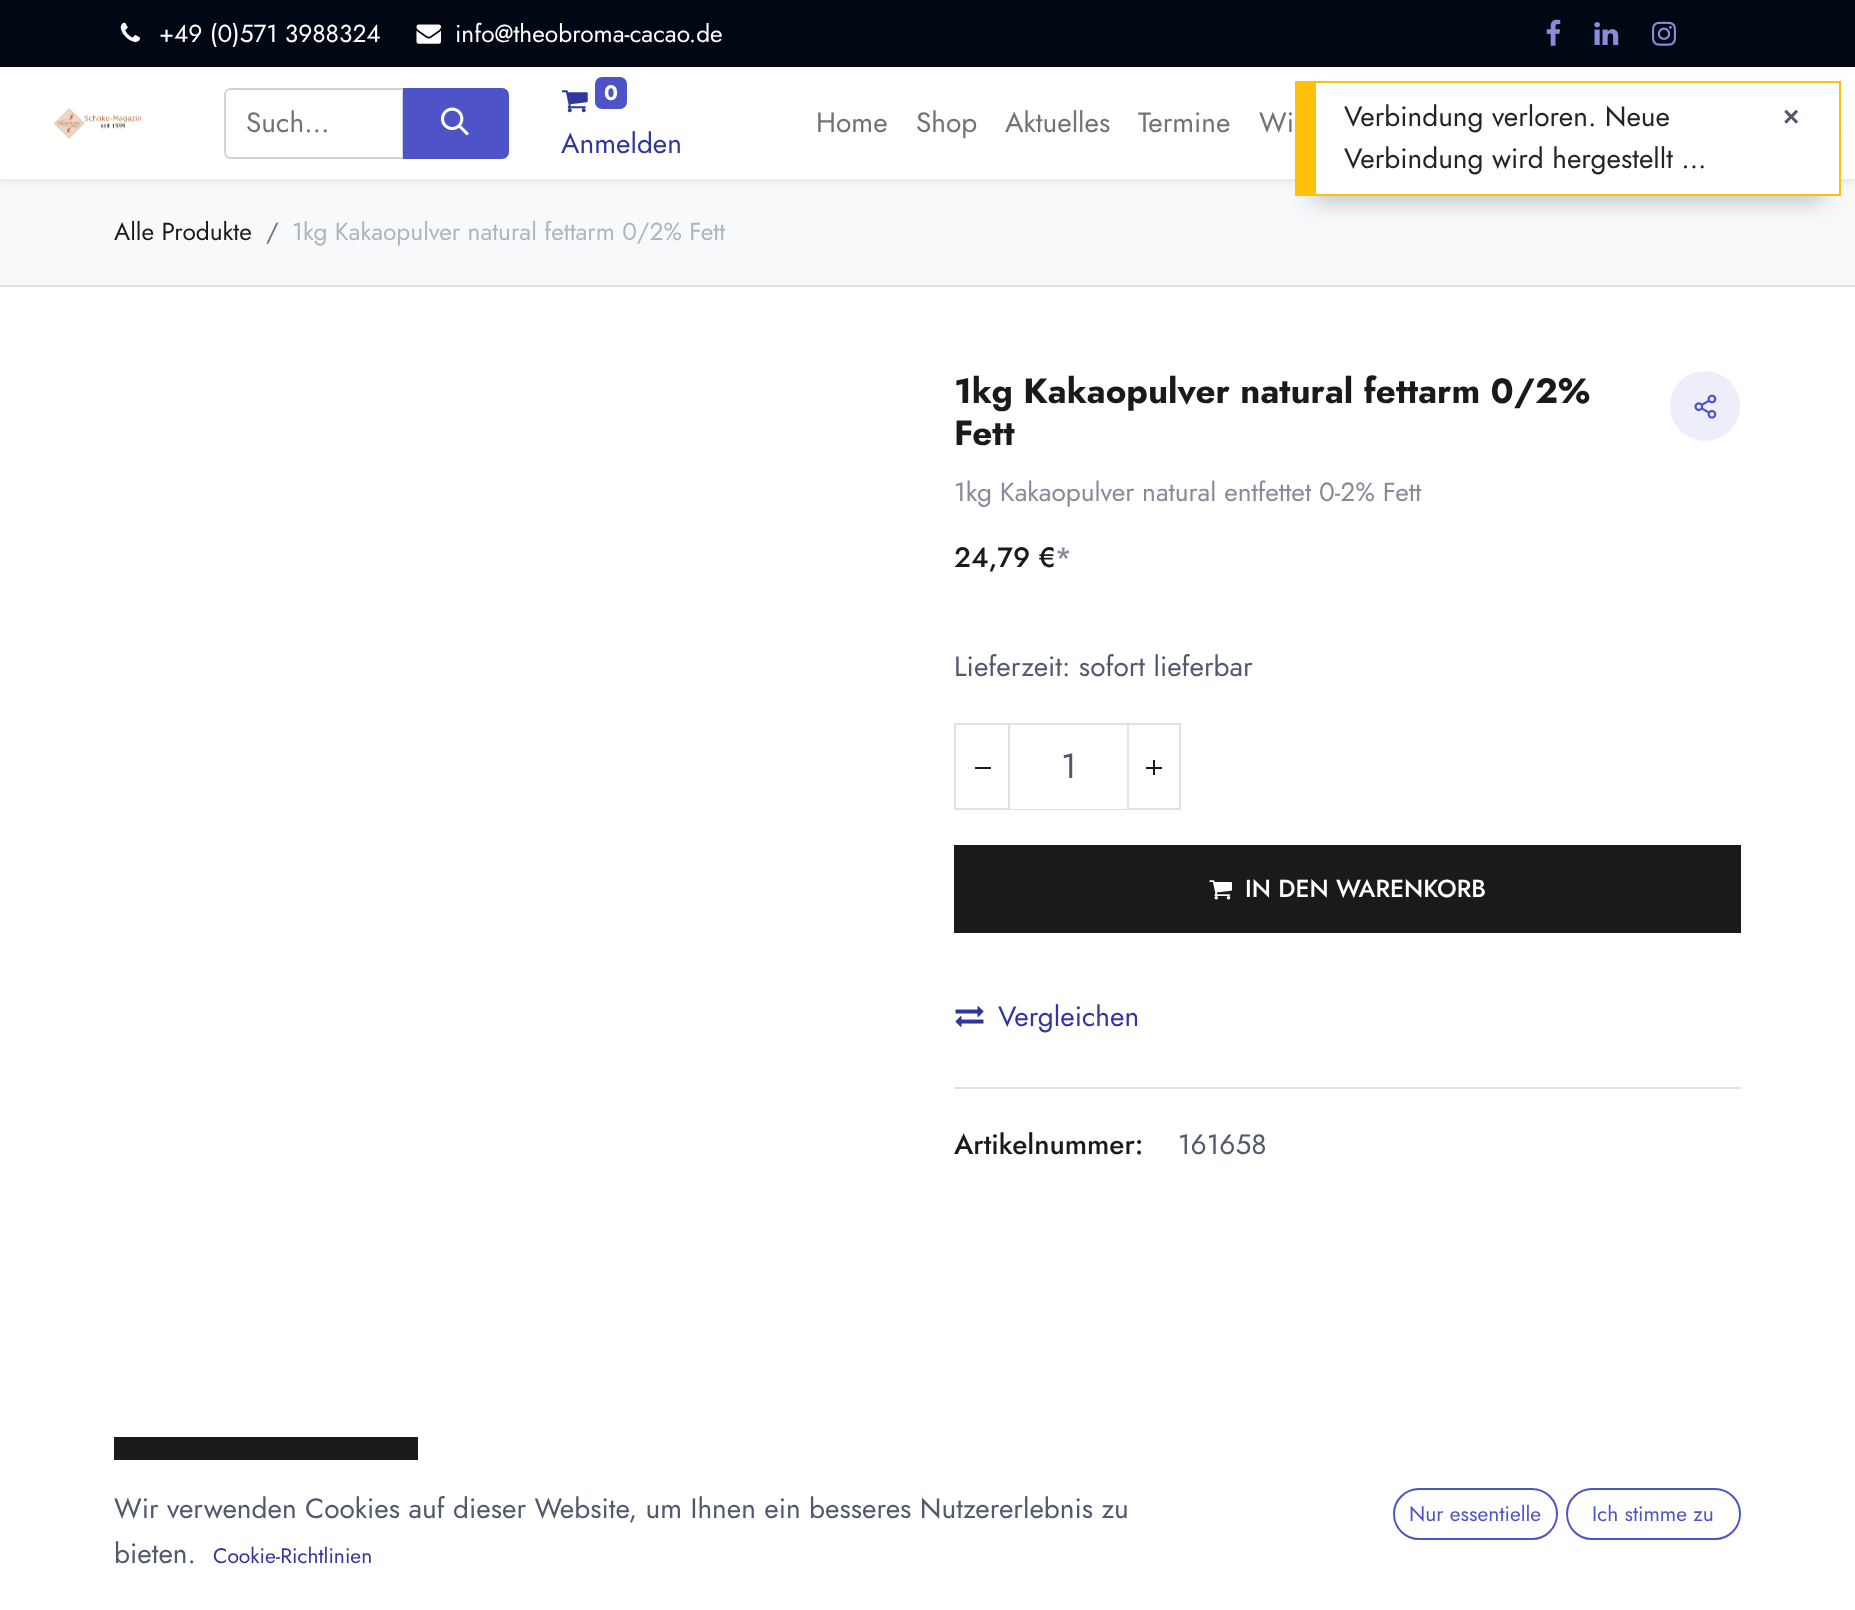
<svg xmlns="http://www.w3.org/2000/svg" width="1855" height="1610">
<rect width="100%" height="100%" fill="#fff"/>
<rect width="1855" height="67" fill="#000814"/>
<image x="120" y="22" width="20" height="20" href="media/1.png"/>
<text x="159" y="42" style="font-family:Jost;font-size:24.5px;fill:#fff">+49 (0)571 3988324</text>
<image x="416" y="24" width="25" height="20" href="media/2.png"/>
<text x="455" y="42" style="font-family:Jost;font-size:24.5px;fill:#fff">info@theobroma-cacao.de</text>
<image x="1546" y="19" width="15" height="27" href="media/3.png"/>
<image x="1594" y="22" width="25" height="23" href="media/4.png"/>
<image x="1652" y="21" width="24" height="25" href="media/5.png"/>
<rect y="179" width="1855" height="106" fill="#f8f9fa"/>
<rect y="70" width="1855" height="112" fill="#00000012" filter="blur(3.5px)"/>
<rect y="67" width="1855" height="112" fill="#fff"/>
<image x="54" y="108" width="88" height="31" href="media/6.png"/>
<path d="M231 89h172v69h-172c-3.5 0-6-2.5-6-6v-57c0-3.5 2.5-6 6-6z" fill="none" stroke="#ced4da" stroke-width="2"/>
<text x="246" y="132" style="font-family:Jost;font-size:28px;fill:#6c757d">Such…</text>
<path d="M404 89h98c3.5 0 6 2.5 6 6v57c0 3.5-2.5 6-6 6h-98z" fill="#4e54c8" stroke="#4e54c8" stroke-width="2"/>
<image x="441" y="107" width="28" height="29" href="media/7.png"/>
<image x="561" y="90" width="27" height="23" href="media/8.png"/>
<rect x="595" y="77" width="32" height="32" rx="7" fill="#4e54c8"/>
<text x="604" y="100" style="font-family:Jost;font-size:21px;font-weight:bold;fill:#fff">0</text>
<text x="561" y="153" style="font-family:Jost;font-size:28px;fill:#31369e">Anmelden</text>
<text x="816" y="132" style="font-family:Jost;font-size:28px;fill:#737373">Home</text>
<text x="916" y="132" style="font-family:Jost;font-size:28px;fill:#737373">Shop</text>
<text x="1005" y="132" style="font-family:Jost;font-size:28px;fill:#737373">Aktuelles</text>
<text x="1138" y="132" style="font-family:Jost;font-size:28px;fill:#737373">Termine</text>
<text x="1259" y="132" style="font-family:Jost;font-size:28px;fill:#737373">Wi</text>
<rect y="285" width="1855" height="2" fill="#dee2e6"/>
<text x="114" y="240" style="font-family:Jost;font-size:24.5px;fill:#1a1a1a">Alle Produkte</text>
<text x="266" y="240" style="font-family:Jost;font-size:24.5px;fill:#6c757d">/</text>
<text x="292" y="240" style="font-family:Jost;font-size:24.5px;fill:#adb5bd">1kg Kakaopulver natural fettarm 0/2% Fett</text>
<text x="954" y="403" style="font-family:Jost;font-size:35px;font-weight:bold;fill:#1a1a1a">1kg Kakaopulver natural fettarm 0/2%</text>
<text x="954" y="445" style="font-family:Jost;font-size:35px;font-weight:bold;fill:#1a1a1a">Fett</text>
<circle cx="1705" cy="406" r="35" fill="#edeefa"/>
<image x="1694" y="394" width="23" height="25" href="media/9.png"/>
<text x="954" y="501" style="font-family:Jost;font-size:26.25px;fill:#858b98">1kg Kakaopulver natural entfettet 0-2% Fett</text>
<text x="954" y="567" style="font-family:Jost;font-size:28px;font-weight:500;fill:#1a1a1a">24,79 €</text>
<text x="1055" y="567" style="font-family:Jost;font-size:28px;font-weight:500;fill:#858b98">*</text>
<text x="954" y="676" style="font-family:Jost;font-size:28px;fill:#51596c">Lieferzeit: sofort lieferbar</text>
<rect x="955" y="724" width="225" height="85" fill="none" stroke="#dee2e6" stroke-width="2"/>
<rect x="975" y="767" width="16" height="2" fill="#1a1a1a"/>
<rect x="1010" y="808" width="117" height="1" fill="#fff"/>
<rect x="1127" y="725" width="2" height="84" fill="#dee2e6"/>
<rect x="1008" y="725" width="2" height="84" fill="#dee2e6"/>
<text x="1061" y="778" style="font-family:Jost;font-size:35px;fill:#51596c">1</text>
<rect x="1146" y="767" width="16" height="2" fill="#1a1a1a"/>
<rect x="1153" y="760" width="2" height="15" fill="#1a1a1a"/>
<rect x="954" y="845" width="787" height="88" fill="#1a1a1a"/>
<image x="1209" y="880" width="23" height="20" href="media/10.png"/>
<text x="1245" y="897" style="font-family:Jost;font-size:24.5px;font-weight:500;fill:#fff">IN DEN WARENKORB</text>
<image x="955" y="1006" width="29" height="21" href="media/11.png"/>
<text x="998" y="1026" style="font-family:Jost;font-size:28px;fill:#31369e">Vergleichen</text>
<rect x="954" y="1087" width="787" height="2" fill="#dee2e6"/>
<text x="954" y="1154" style="font-family:Jost;font-size:28px;font-weight:500;fill:#1a1a1a">Artikelnummer:</text>
<text x="1178" y="1154" style="font-family:Jost;font-size:28px;fill:#51596c">161658</text>
<rect x="114" y="1437" width="304" height="23" fill="#1a1a1a"/>
<text x="114" y="1518" style="font-family:Jost;font-size:28px;fill:#51596c">Wir verwenden Cookies auf dieser Website, um Ihnen ein besseres Nutzererlebnis zu</text>
<text x="114" y="1563" style="font-family:Jost;font-size:28px;fill:#51596c">bieten.</text>
<text x="213" y="1563" style="font-family:Jost;font-size:21px;fill:#31369e">Cookie-Richtlinien</text>
<rect x="1394" y="1489" width="163" height="50" rx="25" fill="none" stroke="#4e54c8" stroke-width="2"/>
<text x="1409" y="1521" style="font-family:Jost;font-size:21px;fill:#4e54c8">Nur essentielle</text>
<rect x="1567" y="1489" width="173" height="50" rx="25" fill="none" stroke="#4e54c8" stroke-width="2"/>
<text x="1592" y="1521" style="font-family:Jost;font-size:21px;fill:#4e54c8">Ich stimme zu</text>
<rect x="1313" y="119" width="511" height="81" fill="#00000040" filter="blur(12px)"/>
<rect x="1316" y="98" width="523" height="96" fill="#fff"/>
<rect x="1316" y="81" width="525" height="2" fill="#ffc107"/>
<rect x="1839" y="81" width="2" height="115" fill="#ffc107"/>
<rect x="1316" y="194" width="525" height="2" fill="#ffc107"/>
<rect x="1295" y="81" width="21" height="115" fill="#ffc107"/>
<text x="1344" y="126" style="font-family:Jost;font-size:28px;fill:#212529">Verbindung verloren. Neue</text>
<text x="1344" y="168" style="font-family:Jost;font-size:28px;fill:#212529">Verbindung wird hergestellt ...</text>
<text x="1783" y="126" style="font-family:Liberation Sans;font-size:28px;font-weight:bold;fill:#51596c">×</text>
</svg>
